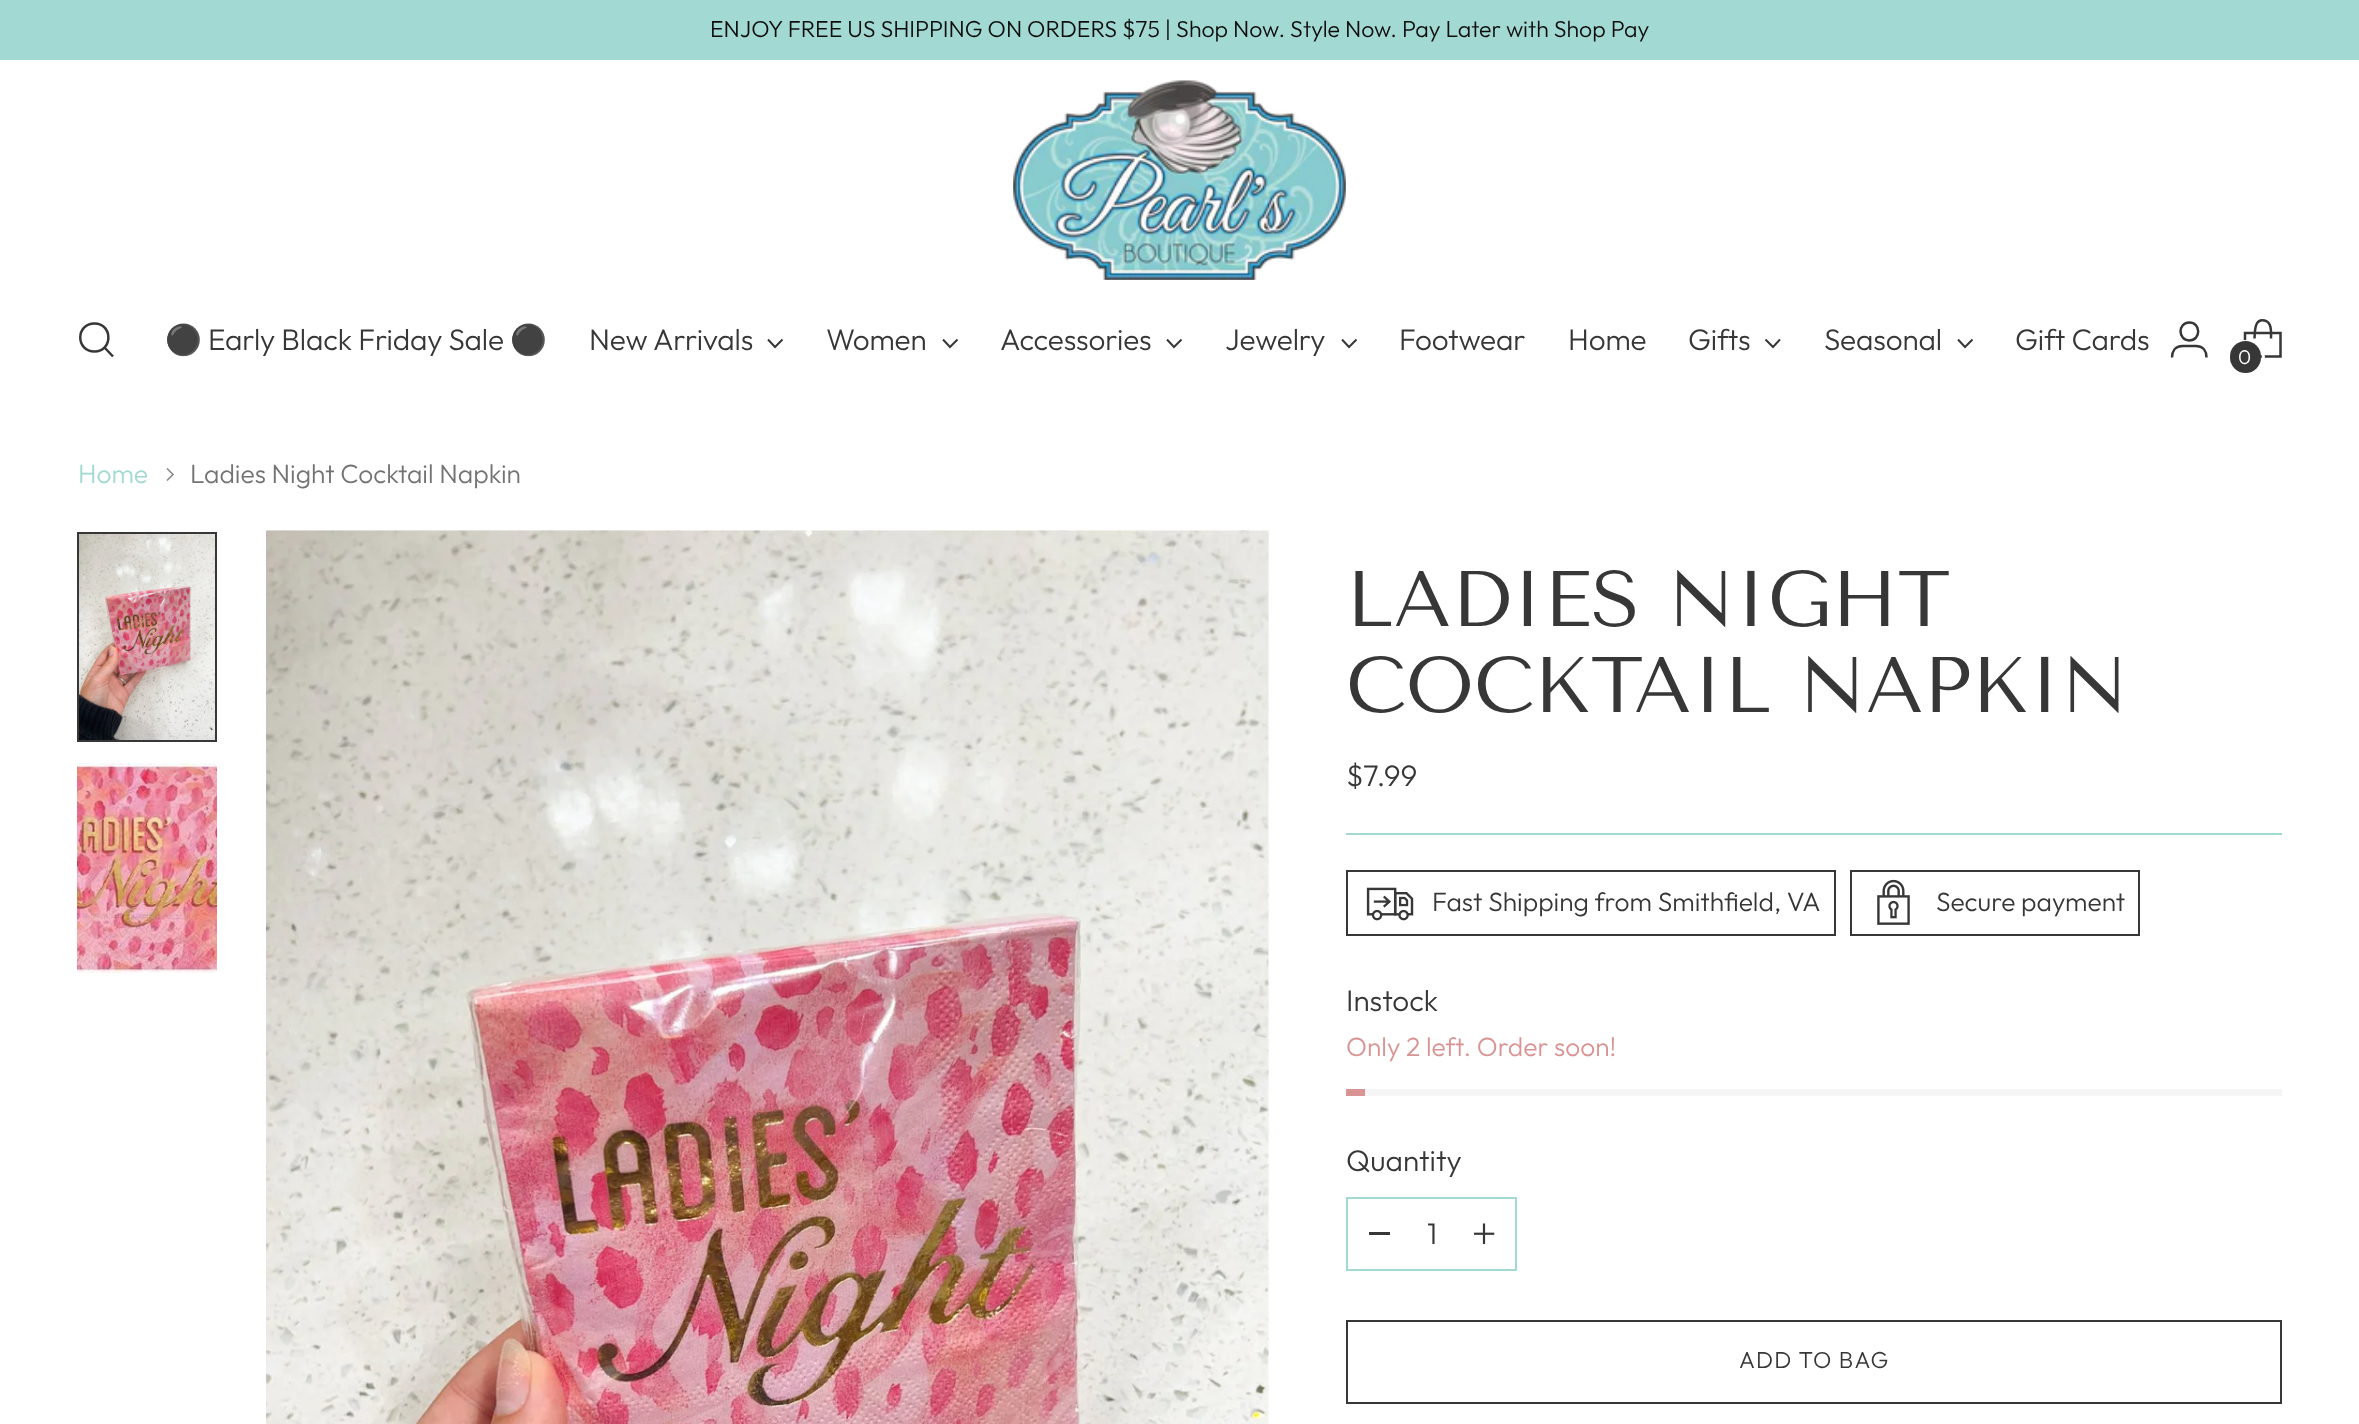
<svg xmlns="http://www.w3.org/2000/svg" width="2359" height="1424">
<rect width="100%" height="100%" fill="#fff"/>
<rect width="2359" height="60" fill="#a2d9d2"/>
<text x="710" y="37" style="font-family:Outfit;font-size:23.1px;font-weight:300;fill:#0e0d0d">ENJOY FREE US SHIPPING ON ORDERS $75 | Shop Now. Style Now. Pay Later with Shop Pay</text>
<image x="1013" y="80" width="333" height="200" href="media/1.png"/>
<path d="M94.5 351.5c18.5 0 18.5-28 0-28c-19 0-19 28 0 28z" fill="none" stroke="#373737" stroke-width="2.5" stroke-linecap="round"/>
<path d="M104.5 347.5l8.5 9" fill="none" stroke="#373737" stroke-width="2.5"/>
<text x="165" y="350" style="font-family:Noto Color Emoji;font-size:29.75px;letter-spacing:-0.15px;fill:#373737">⚫️</text>
<text x="208" y="350" style="font-family:Outfit;font-size:29.75px;font-weight:300;letter-spacing:-0.15px;fill:#373737">Early Black Friday Sale</text>
<text x="510" y="350" style="font-family:Noto Color Emoji;font-size:29.75px;letter-spacing:-0.15px;fill:#373737">⚫️</text>
<text x="589" y="350" style="font-family:Outfit;font-size:29.75px;font-weight:300;letter-spacing:-0.15px;fill:#373737">New Arrivals</text>
<path d="M768 339.5l7 7.5l7.5-7.5" fill="none" stroke="#373737" stroke-width="2"/>
<text x="826" y="350" style="font-family:Outfit;font-size:29.75px;font-weight:300;letter-spacing:-0.15px;fill:#373737">Women</text>
<path d="M943 339.5l7 7.5l7.5-7.5" fill="none" stroke="#373737" stroke-width="2"/>
<text x="1000" y="350" style="font-family:Outfit;font-size:29.75px;font-weight:300;letter-spacing:-0.15px;fill:#373737">Accessories</text>
<path d="M1167 339.5l7 7.5l7.5-7.5" fill="none" stroke="#373737" stroke-width="2"/>
<text x="1225" y="350" style="font-family:Outfit;font-size:29.75px;font-weight:300;letter-spacing:-0.15px;fill:#373737">Jewelry</text>
<path d="M1342 339.5l7 7.5l7.5-7.5" fill="none" stroke="#373737" stroke-width="2"/>
<text x="1399" y="350" style="font-family:Outfit;font-size:29.75px;font-weight:300;letter-spacing:-0.15px;fill:#373737">Footwear</text>
<text x="1568" y="350" style="font-family:Outfit;font-size:29.75px;font-weight:300;letter-spacing:-0.15px;fill:#373737">Home</text>
<text x="1688" y="350" style="font-family:Outfit;font-size:29.75px;font-weight:300;letter-spacing:-0.15px;fill:#373737">Gifts</text>
<path d="M1765.5 339.5l7.5 7.5l7-7.5" fill="none" stroke="#373737" stroke-width="2"/>
<text x="1824" y="350" style="font-family:Outfit;font-size:29.75px;font-weight:300;letter-spacing:-0.15px;fill:#373737">Seasonal</text>
<path d="M1958 339.5l7 7.5l7.5-7.5" fill="none" stroke="#373737" stroke-width="2"/>
<text x="2015" y="350" style="font-family:Outfit;font-size:29.75px;font-weight:300;letter-spacing:-0.15px;fill:#373737">Gift Cards</text>
<path d="M2189 340.5c12.5 0 12-18.5 0-18c-11.5 .5-11 17.5 0 18zm-17 17c0-6 3-11.5 10.5-11.5h13.5c7.5 0 10.5 5.5 10.5 11.5" fill="none" stroke="#373737" stroke-width="2.5"/>
<path d="M2271 338.5c0-4.5 .5-9-1-13c-1-2.5-3-4.5-5.5-5c-10.5-2-9.5 11.5-10 18" fill="none" stroke="#373737" stroke-width="2.5" stroke-linejoin="bevel"/>
<path d="M2280.5 356.5v-23.5h-35.5v23.5z" fill="none" stroke="#373737" stroke-width="2.5"/>
<rect x="2229.5" y="341.5" width="34" height="33" rx="16.5" fill="none" stroke="#fff" stroke-width="3"/>
<rect x="2230" y="341" width="31" height="32" rx="15.5" fill="#373737"/>
<text x="2238" y="364" style="font-family:Outfit;font-size:20px;font-weight:300;fill:#fff">0</text>
<text x="78" y="483" style="font-family:Outfit;font-size:26.4px;font-weight:300;fill:#a2d9d2">Home</text>
<path d="M167 480.5l6-6l-6-6" fill="none" stroke="#878787" stroke-width="1.6"/>
<text x="190" y="483" style="font-family:Outfit;font-size:26.4px;font-weight:300;fill:#737373">Ladies Night Cocktail Napkin</text>
<image x="79" y="534" width="136" height="206" href="media/2.png"/>
<rect x="78" y="533" width="138" height="208" fill="none" stroke="#373737" stroke-width="2"/>
<image x="77" y="763" width="140" height="210" href="media/3.png"/>
<image x="266" y="530" width="1003" height="894" href="media/4.png"/>
<rect x="1346" y="833" width="936" height="2" fill="#a2d9d2"/>
<text x="1346" y="626" style="font-family:Tenor Sans;font-size:78.75px;fill:#373737">LADIES NIGHT</text>
<text x="1346" y="712" style="font-family:Tenor Sans;font-size:78.75px;fill:#373737">COCKTAIL NAPKIN</text>
<text x="1346" y="786" style="font-family:Outfit;font-size:29.75px;font-weight:300;fill:#373737">$7.99</text>
<rect x="1347" y="871" width="488" height="64" fill="none" stroke="#373737" stroke-width="2"/>
<image x="1366" y="887" width="48" height="34" href="media/5.png"/>
<text x="1432" y="911" style="font-family:Outfit;font-size:26.4px;font-weight:300;fill:#373737">Fast Shipping from Smithfield, VA</text>
<rect x="1851" y="871" width="288" height="64" fill="none" stroke="#373737" stroke-width="2"/>
<image x="1877" y="879" width="33" height="46" href="media/6.png"/>
<text x="1936" y="911" style="font-family:Outfit;font-size:26.4px;font-weight:300;fill:#373737">Secure payment</text>
<text x="1346" y="1011" style="font-family:Outfit;font-size:29.75px;font-weight:300;fill:#373737">Instock</text>
<text x="1346" y="1056" style="font-family:Outfit;font-size:26.4px;font-weight:300;fill:#da9393">Only 2 left. Order soon!</text>
<rect x="1365" y="1089" width="917" height="7" fill="#f5f5f5"/>
<rect x="1346" y="1089" width="19" height="7" fill="#da9393"/>
<text x="1346" y="1171" style="font-family:Outfit;font-size:29.75px;font-weight:300;fill:#373737">Quantity</text>
<rect x="1347" y="1198" width="169" height="72" fill="none" stroke="#a2d9d2" stroke-width="2"/>
<rect x="1369" y="1232" width="21" height="3" fill="#373737"/>
<text x="1427" y="1244" style="font-family:Outfit;font-size:29.75px;font-weight:300;fill:#373737">1</text>
<image x="1474" y="1223" width="21" height="21" href="media/7.png"/>
<rect x="1347" y="1321" width="934" height="82" fill="none" stroke="#373737" stroke-width="2"/>
<text x="1739" y="1368" style="font-family:Outfit;font-size:23.1px;font-weight:300;letter-spacing:1.25px;fill:#373737">ADD TO BAG</text>
</svg>
